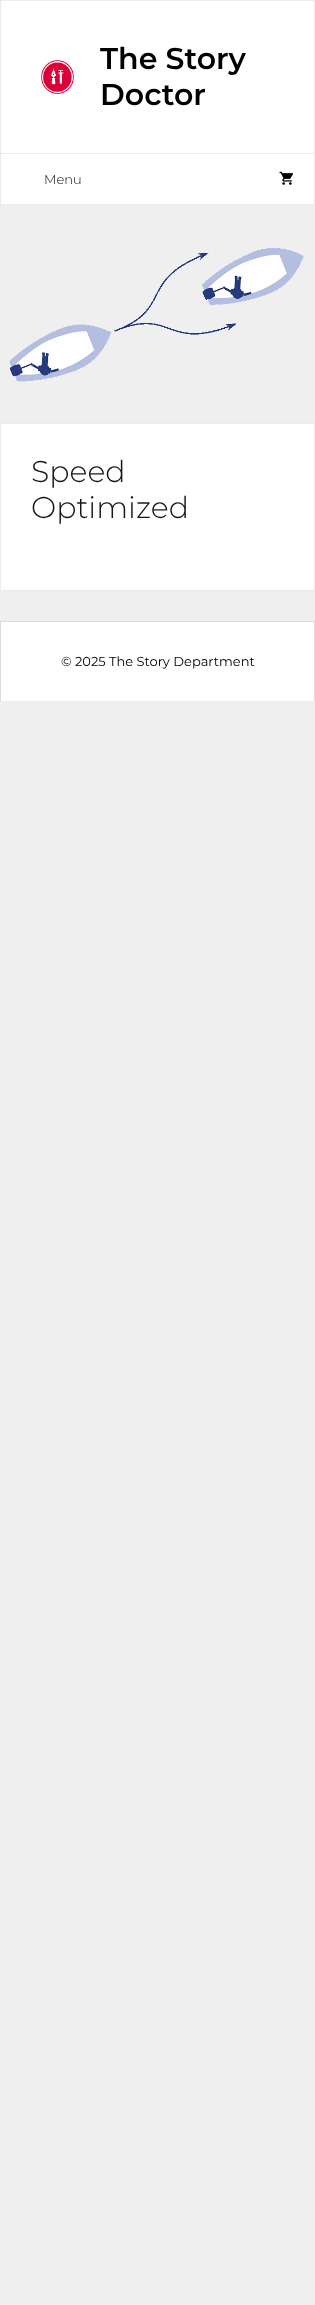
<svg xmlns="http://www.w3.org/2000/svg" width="315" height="2305">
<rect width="100%" height="100%" fill="#efefef"/>
<rect width="315" height="153" fill="#fff"/>
<path d="M0 0h315l-1 1h-313z" fill="#ebebeb"/>
<path d="M315 0v153h-1v-152z" fill="#00000014"/>
<path d="M0 153v-153l1 1v152z" fill="#00000014"/>
<image x="41" y="60" width="33" height="34" href="media/1.png"/>
<text x="100" y="69" style="font-family:Montserrat;font-size:30px;font-weight:600;fill:#000">The Story</text>
<text x="100" y="105" style="font-family:Montserrat;font-size:30px;font-weight:600;fill:#000">Doctor</text>
<rect x="0.5" y="153.5" width="314" height="51" fill="#fff" stroke="#ebebeb"/>
<text x="44" y="184" style="font-family:Montserrat;font-size:13px;font-weight:300;fill:#000">Menu</text>
<image x="279" y="171" width="14" height="14" href="media/2.png"/>
<image x="9" y="248" width="295" height="134" href="media/3.png"/>
<rect x="0.5" y="423.5" width="314" height="167" fill="#fff" stroke="#ebebeb"/>
<text x="31" y="482" style="font-family:Montserrat;font-size:30px;font-weight:300;fill:#161616">Speed</text>
<text x="31" y="518" style="font-family:Montserrat;font-size:30px;font-weight:300;fill:#161616">Optimized</text>
<path d="M0 621h315l-1 1h-313z" fill="#dcdcdc"/>
<path d="M315 621v80h-1v-79z" fill="#00000014"/>
<path d="M0 701v-80l1 1v79z" fill="#00000014"/>
<rect x="1" y="622" width="313" height="79" fill="#fff"/>
<text x="61" y="666" style="font-family:Montserrat;font-size:13px;fill:#000">© 2025 The Story Department</text>
</svg>
